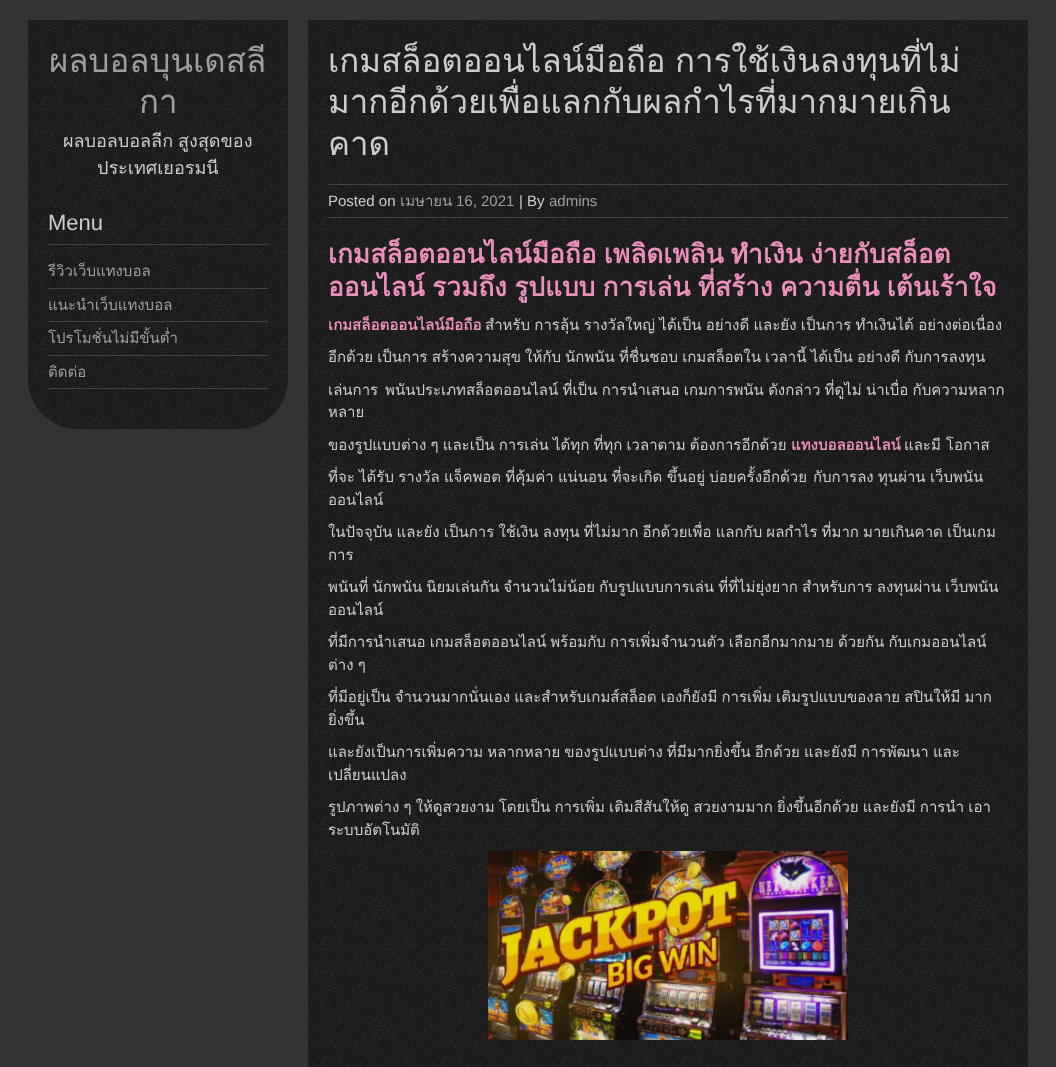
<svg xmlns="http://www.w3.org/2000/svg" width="1056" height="1067">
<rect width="100%" height="100%" fill="#333"/>
<image x="28" y="20" width="260" height="409" href="media/1.png"/>
<text x="49" y="72" style="font-family:Loma;font-size:33px;fill:#9e9e9e">ผลบอลบุนเดสลี</text>
<text x="139" y="113" style="font-family:Loma;font-size:33px;fill:#9e9e9e">กา</text>
<text x="63" y="147" word-spacing="-1" style="font-family:Loma;font-size:18px;fill:#ccc">ผลบอลบอลลีก สูงสุดของ</text>
<text x="97" y="174" style="font-family:Loma;font-size:18px;fill:#ccc">ประเทศเยอรมนี</text>
<rect x="48" y="244" width="220" height="1" fill="#424242"/>
<text x="48" y="230" style="font-family:Liberation Sans;font-size:22px;fill:#ccc">Menu</text>
<rect x="48" y="288" width="220" height="1" fill="#424242"/>
<text x="48" y="276" style="font-family:Loma;font-size:15px;fill:#9e9e9e">รีวิวเว็บแทงบอล</text>
<rect x="48" y="321" width="220" height="1" fill="#424242"/>
<text x="48" y="310" style="font-family:Loma;font-size:15px;fill:#9e9e9e">แนะนำเว็บแทงบอล</text>
<rect x="48" y="355" width="220" height="1" fill="#424242"/>
<text x="48" y="343" style="font-family:Loma;font-size:15px;fill:#9e9e9e">โปรโมชั่นไม่มีขั้นต่ำ</text>
<rect x="48" y="388" width="220" height="1" fill="#424242"/>
<text x="48" y="377" style="font-family:Loma;font-size:15px;fill:#9e9e9e">ติดต่อ</text>
<image x="308" y="20" width="720" height="1047" href="media/2.png"/>
<text x="328" y="72" style="font-family:Loma;font-size:33px;fill:#ccc">เกมสล็อตออนไลน์มือถือ</text>
<text x="675" y="72" style="font-family:Loma;font-size:33px;fill:#ccc">การใช้เงินลงทุนที่ไม่</text>
<text x="328" y="113" style="font-family:Loma;font-size:33px;fill:#ccc">มากอีกด้วยเพื่อแลกกับผลกำไรที่มากมายเกิน</text>
<text x="328" y="155" style="font-family:Loma;font-size:33px;fill:#ccc">คาด</text>
<rect x="328" y="184" width="680" height="1" fill="#424242"/>
<rect x="328" y="217" width="680" height="1" fill="#424242"/>
<text x="328" y="206" style="font-family:Liberation Sans;font-size:15px;fill:#ccc">Posted on</text>
<text x="400" y="206" style="font-family:Loma;font-size:15px;fill:#9e9e9e">เมษายน</text>
<text x="456" y="206" style="font-family:Liberation Sans;font-size:15px;fill:#9e9e9e">16, 2021</text>
<text x="519" y="206" style="font-family:Liberation Sans;font-size:15px;fill:#ccc">| By</text>
<text x="549" y="206" style="font-family:Liberation Sans;font-size:15px;fill:#9e9e9e">admins</text>
<text x="328" y="263" word-spacing="-1.5" style="font-family:Loma;font-size:26.25px;font-weight:bold;fill:#eb8fbd">เกมสล็อตออนไลน์มือถือ เพลิดเพลิน ทำเงิน ง่ายกับสล็อต</text>
<text x="328" y="296" word-spacing="-1.5" style="font-family:Loma;font-size:26.25px;font-weight:bold;fill:#eb8fbd">ออนไลน์ รวมถึง รูปแบบ การเล่น ที่สร้าง ความตื่น เต้นเร้าใจ</text>
<text x="328" y="330" style="font-family:Loma;font-size:15px;font-weight:bold;fill:#eb8fbd">เกมสล็อตออนไลน์มือถือ</text>
<text x="485" y="330" word-spacing="-0.75" style="font-family:Loma;font-size:15px;fill:#ccc">สำหรับ การลุ้น รางวัลใหญ่ ได้เป็น อย่างดี และยัง เป็นการ ทำเงินได้ อย่างต่อเนื่อง</text>
<text x="328" y="362" word-spacing="-0.9" style="font-family:Loma;font-size:15px;fill:#ccc">อีกด้วย เป็นการ สร้างความสุข ให้กับ นักพนัน ที่ชื่นชอบ เกมสล็อตใน เวลานี้ ได้เป็น อย่างดี กับการลงทุน</text>
<text x="328" y="395" style="font-family:Loma;font-size:15px;fill:#ccc">เล่นการ</text>
<text x="385" y="395" word-spacing="-0.75" style="font-family:Loma;font-size:15px;fill:#ccc">พนันประเภทสล็อตออนไลน์ ที่เป็น การนำเสนอ เกมการพนัน ดังกล่าว ที่ดูไม่ น่าเบื่อ กับความหลาก</text>
<text x="328" y="417" style="font-family:Loma;font-size:15px;fill:#ccc">หลาย</text>
<text x="328" y="450" word-spacing="-0.9" style="font-family:Loma;font-size:15px;fill:#ccc">ของรูปแบบต่าง ๆ และเป็น การเล่น ได้ทุก ที่ทุก เวลาตาม ต้องการอีกด้วย</text>
<text x="791" y="450" style="font-family:Loma;font-size:15px;font-weight:bold;fill:#eb8fbd">แทงบอลออนไลน์</text>
<text x="904" y="450" style="font-family:Loma;font-size:15px;fill:#ccc">และมี โอกาส</text>
<text x="328" y="482" word-spacing="-0.75" style="font-family:Loma;font-size:15px;fill:#ccc">ที่จะ ได้รับ รางวัล แจ็คพอต ที่คุ้มค่า แน่นอน ที่จะเกิด ขึ้นอยู่ บ่อยครั้งอีกด้วย</text>
<text x="813" y="482" word-spacing="-0.75" style="font-family:Loma;font-size:15px;fill:#ccc">กับการลง ทุนผ่าน เว็บพนัน</text>
<text x="328" y="505" style="font-family:Loma;font-size:15px;fill:#ccc">ออนไลน์</text>
<text x="328" y="537" word-spacing="-0.9" style="font-family:Loma;font-size:15px;fill:#ccc">ในปัจจุบัน และยัง เป็นการ ใช้เงิน ลงทุน ที่ไม่มาก อีกด้วยเพื่อ แลกกับ ผลกำไร ที่มาก มายเกินคาด เป็นเกม</text>
<text x="328" y="560" style="font-family:Loma;font-size:15px;fill:#ccc">การ</text>
<text x="328" y="592" word-spacing="-0.9" style="font-family:Loma;font-size:15px;fill:#ccc">พนันที่ นักพนัน นิยมเล่นกัน จำนวนไม่น้อย กับรูปแบบการเล่น ที่ที่ไม่ยุ่งยาก สำหรับการ ลงทุนผ่าน เว็บพนัน</text>
<text x="328" y="615" style="font-family:Loma;font-size:15px;fill:#ccc">ออนไลน์</text>
<text x="328" y="647" word-spacing="-0.9" style="font-family:Loma;font-size:15px;fill:#ccc">ที่มีการนำเสนอ เกมสล็อตออนไลน์ พร้อมกับ การเพิ่มจำนวนตัว เลือกอีกมากมาย ด้วยกัน กับเกมออนไลน์</text>
<text x="328" y="670" word-spacing="-0.9" style="font-family:Loma;font-size:15px;fill:#ccc">ต่าง ๆ</text>
<text x="328" y="702" word-spacing="-0.9" style="font-family:Loma;font-size:15px;fill:#ccc">ที่มีอยู่เป็น จำนวนมากนั่นเอง และสำหรับเกมส์สล็อต เองก็ยังมี การเพิ่ม เติมรูปแบบของลาย สปินให้มี มาก</text>
<text x="328" y="725" style="font-family:Loma;font-size:15px;fill:#ccc">ยิ่งขึ้น</text>
<text x="328" y="757" word-spacing="-0.9" style="font-family:Loma;font-size:15px;fill:#ccc">และยังเป็นการเพิ่มความ หลากหลาย ของรูปแบบต่าง ที่มีมากยิ่งขึ้น อีกด้วย และยังมี การพัฒนา และ</text>
<text x="328" y="780" style="font-family:Loma;font-size:15px;fill:#ccc">เปลี่ยนแปลง</text>
<text x="328" y="812" word-spacing="-0.9" style="font-family:Loma;font-size:15px;fill:#ccc">รูปภาพต่าง ๆ ให้ดูสวยงาม โดยเป็น การเพิ่ม เติมสีสันให้ดู สวยงามมาก ยิ่งขึ้นอีกด้วย และยังมี การนำ เอา</text>
<text x="328" y="835" style="font-family:Loma;font-size:15px;fill:#ccc">ระบบอัตโนมัติ</text>
<image x="488" y="851" width="360" height="189" href="media/3.png"/>
</svg>
